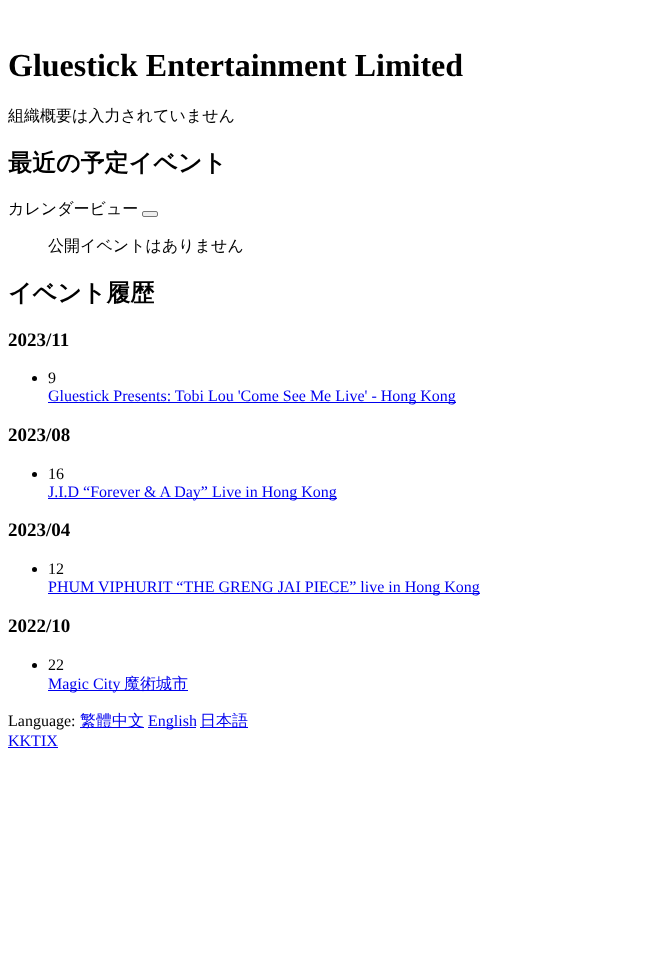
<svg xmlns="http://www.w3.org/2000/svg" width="646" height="953">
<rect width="100%" height="100%" fill="#fff"/>
<text x="8" y="76" style="font-family:Liberation Serif;font-size:32px;font-weight:bold;fill:#000">Gluestick Entertainment Limited</text>
<text x="8" y="121" style="font-family:WenQuanYi Zen Hei;font-size:16px;font-weight:500;fill:#000">組織概要は入力されていません</text>
<text x="8" y="171" style="font-family:WenQuanYi Zen Hei;font-size:24px;font-weight:bold;fill:#000">最近の予定イベント</text>
<text x="8" y="214" style="font-family:WenQuanYi Zen Hei;font-size:16px;font-weight:500;fill:#000">カレンダービュー</text>
<rect x="142.5" y="211.5" width="15" height="5" rx="1.5" fill="#efefef" stroke="#767676"/>
<text x="48" y="251" style="font-family:WenQuanYi Zen Hei;font-size:16px;font-weight:500;fill:#000">公開イベントはありません</text>
<text x="8" y="301" style="font-family:WenQuanYi Zen Hei;font-size:24px;font-weight:bold;fill:#000">イベント履歴</text>
<text x="8" y="346" style="font-family:Liberation Serif;font-size:19px;font-weight:bold;fill:#000">2023/11</text>
<circle cx="34.5" cy="378.5" r="2.5" fill="#000"/>
<text x="48" y="383" style="font-family:Liberation Serif;font-size:16px;fill:#000">9</text>
<rect x="48" y="402" width="408" height="1" fill="#00e"/>
<text x="48" y="401" style="font-family:Liberation Serif;font-size:16px;fill:#00e">Gluestick Presents: Tobi Lou 'Come See Me Live' - Hong Kong</text>
<text x="8" y="441" style="font-family:Liberation Serif;font-size:19px;font-weight:bold;fill:#000">2023/08</text>
<circle cx="34.5" cy="474.5" r="2.5" fill="#000"/>
<text x="48" y="479" style="font-family:Liberation Serif;font-size:16px;fill:#000">16</text>
<rect x="48" y="498" width="289" height="1" fill="#00e"/>
<text x="48" y="497" style="font-family:Liberation Serif;font-size:16px;fill:#00e">J.I.D “Forever &amp; A Day” Live in Hong Kong</text>
<text x="8" y="536" style="font-family:Liberation Serif;font-size:19px;font-weight:bold;fill:#000">2023/04</text>
<circle cx="34.5" cy="569.5" r="2.5" fill="#000"/>
<text x="48" y="574" style="font-family:Liberation Serif;font-size:16px;fill:#000">12</text>
<rect x="48" y="593" width="432" height="1" fill="#00e"/>
<text x="48" y="592" style="font-family:Liberation Serif;font-size:16px;fill:#00e">PHUM VIPHURIT “THE GRENG JAI PIECE” live in Hong Kong</text>
<text x="8" y="632" style="font-family:Liberation Serif;font-size:19px;font-weight:bold;fill:#000">2022/10</text>
<circle cx="34.5" cy="665.5" r="2.5" fill="#000"/>
<text x="48" y="670" style="font-family:Liberation Serif;font-size:16px;fill:#000">22</text>
<rect x="48" y="690" width="140" height="1" fill="#00e"/>
<text x="48" y="689" style="font-family:Liberation Serif;font-size:16px;fill:#00e">Magic City</text>
<text x="124" y="689" style="font-family:WenQuanYi Zen Hei;font-size:16px;font-weight:500;fill:#00e">魔術城市</text>
<text x="8" y="726" style="font-family:Liberation Serif;font-size:16px;fill:#000">Language:</text>
<rect x="80" y="727" width="64" height="1" fill="#00e"/>
<text x="80" y="726" style="font-family:WenQuanYi Zen Hei;font-size:16px;font-weight:500;fill:#00e">繁體中文</text>
<rect x="148" y="727" width="48" height="1" fill="#00e"/>
<text x="148" y="726" style="font-family:Liberation Serif;font-size:16px;fill:#00e">English</text>
<rect x="200" y="727" width="48" height="1" fill="#00e"/>
<text x="200" y="726" style="font-family:WenQuanYi Zen Hei;font-size:16px;font-weight:500;fill:#00e">日本語</text>
<text x="8" y="746" style="font-family:Liberation Serif;font-size:16px;fill:#00e">KKTIX</text>
<rect x="8" y="747" width="50" height="1" fill="#00e"/>
</svg>
